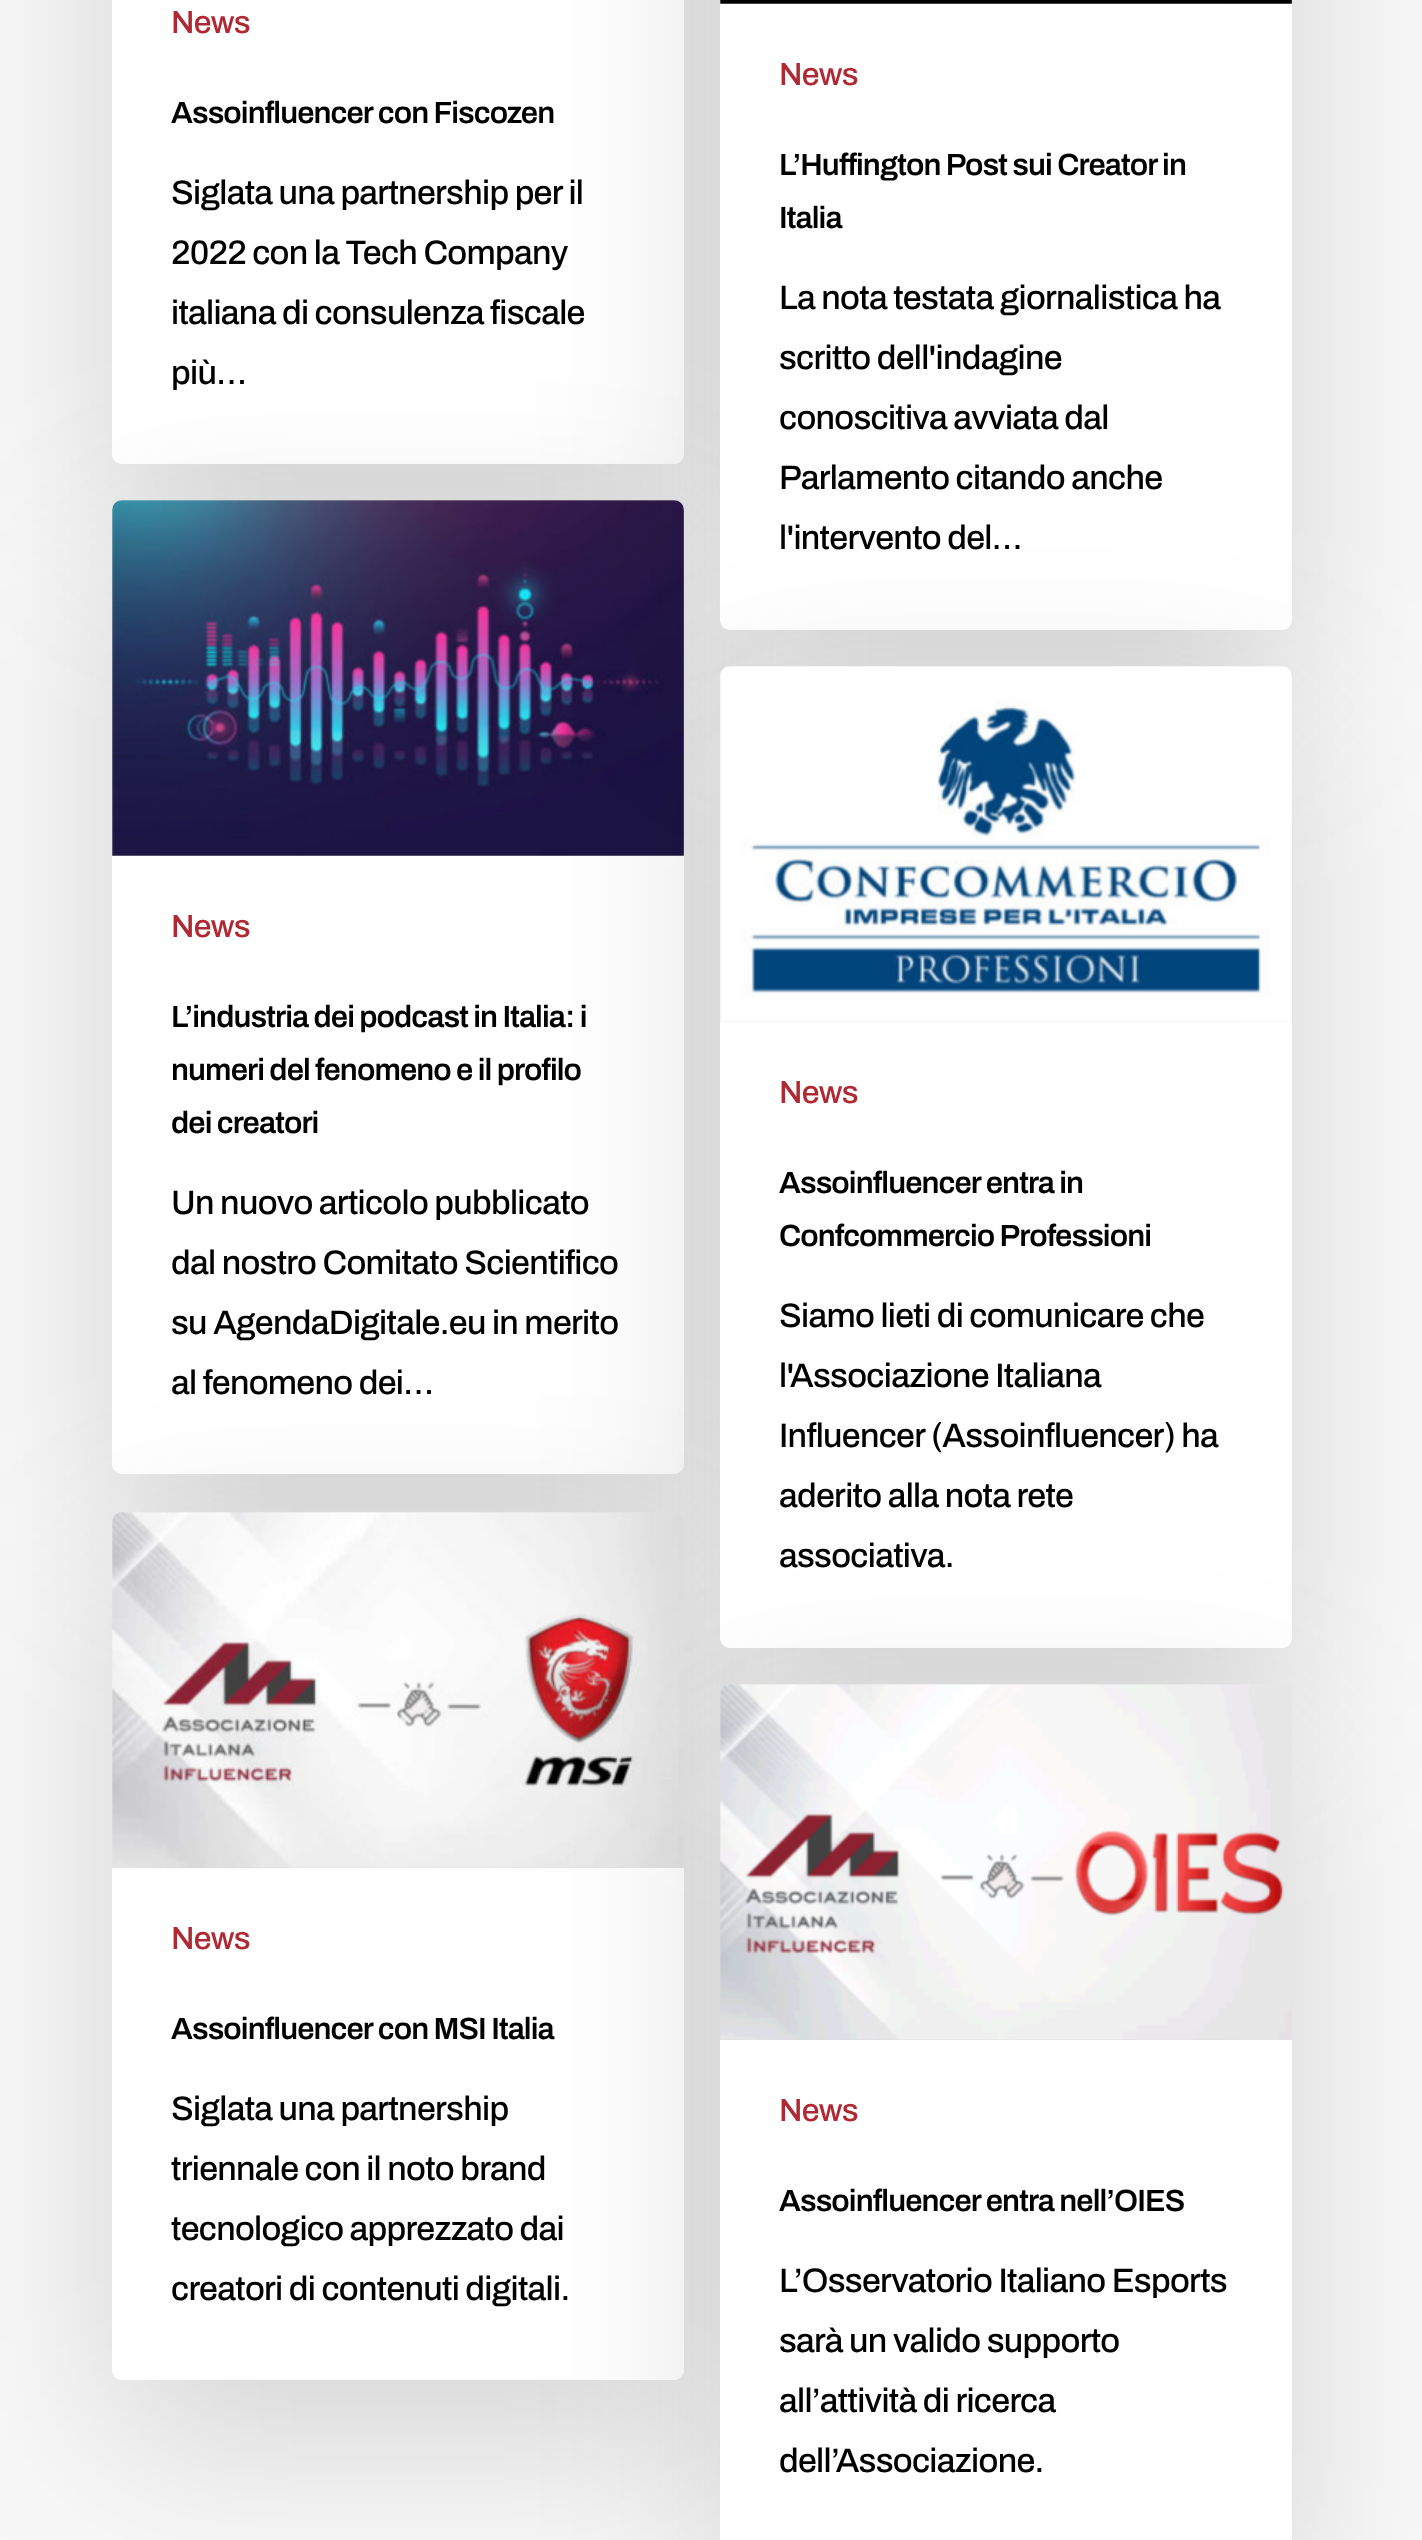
<svg xmlns="http://www.w3.org/2000/svg" width="1422" height="2540">
<rect width="100%" height="100%" fill="#f8f8f8"/>
<rect x="112" y="-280" width="572" height="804" rx="10" fill="#00000024" filter="blur(90px)"/>
<rect x="112" width="572" height="66" fill="#fff"/>
<text x="171" y="33" style="font-family:Archivo;font-size:32px;font-weight:500;letter-spacing:-0.7px;fill:#b02932">News</text>
<path d="M112 66h572v388c0 5.5-4.5 10-10 10h-552c-5.5 0-10-4.5-10-10z" fill="#fff"/>
<text x="171" y="123" style="font-family:Archivo;font-size:30.75px;font-weight:600;letter-spacing:-0.9px;fill:#000">Assoinfluencer con Fiscozen</text>
<text x="171" y="204" style="font-family:Archivo;font-size:34px;font-weight:500;letter-spacing:-0.7px;fill:#000">Siglata una partnership per il</text>
<text x="171" y="264" style="font-family:Archivo;font-size:34px;font-weight:500;letter-spacing:-0.7px;fill:#000">2022 con la Tech Company</text>
<text x="171" y="324" style="font-family:Archivo;font-size:34px;font-weight:500;letter-spacing:-0.7px;fill:#000">italiana di consulenza fiscale</text>
<text x="171" y="384" style="font-family:Archivo;font-size:34px;font-weight:500;letter-spacing:-0.7px;fill:#000">più…</text>
<rect x="112" y="560" width="572" height="974" rx="10" fill="#00000024" filter="blur(90px)"/>
<image x="112" y="500" width="572" height="356" href="media/2.png"/>
<rect x="112" y="856" width="572" height="114" fill="#fff"/>
<rect x="720" y="-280" width="572" height="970" rx="10" fill="#00000024" filter="blur(90px)"/>
<image x="720" y="0" width="572" height="4" href="media/1.png"/>
<rect x="720" y="4" width="572" height="114" fill="#fff"/>
<text x="779" y="85" style="font-family:Archivo;font-size:32px;font-weight:500;letter-spacing:-0.7px;fill:#b02932">News</text>
<path d="M720 118h572v502c0 5.5-4.5 10-10 10h-552c-5.5 0-10-4.5-10-10z" fill="#fff"/>
<text x="779" y="175" style="font-family:Archivo;font-size:30.75px;font-weight:600;letter-spacing:-0.9px;fill:#000">L’Huffington Post sui Creator in</text>
<text x="779" y="228" style="font-family:Archivo;font-size:30.75px;font-weight:600;letter-spacing:-0.9px;fill:#000">Italia</text>
<text x="779" y="309" style="font-family:Archivo;font-size:34px;font-weight:500;letter-spacing:-0.7px;fill:#000">La nota testata giornalistica ha</text>
<text x="779" y="369" style="font-family:Archivo;font-size:34px;font-weight:500;letter-spacing:-0.7px;fill:#000">scritto dell'indagine</text>
<text x="779" y="429" style="font-family:Archivo;font-size:34px;font-weight:500;letter-spacing:-0.7px;fill:#000">conoscitiva avviata dal</text>
<text x="779" y="489" style="font-family:Archivo;font-size:34px;font-weight:500;letter-spacing:-0.7px;fill:#000">Parlamento citando anche</text>
<text x="779" y="549" style="font-family:Archivo;font-size:34px;font-weight:500;letter-spacing:-0.7px;fill:#000">l'intervento del…</text>
<text x="171" y="937" style="font-family:Archivo;font-size:32px;font-weight:500;letter-spacing:-0.7px;fill:#b02932">News</text>
<path d="M112 970h572v494c0 5.5-4.5 10-10 10h-552c-5.5 0-10-4.5-10-10z" fill="#fff"/>
<text x="171" y="1027" style="font-family:Archivo;font-size:30.75px;font-weight:600;letter-spacing:-0.9px;fill:#000">L’industria dei podcast in Italia: i</text>
<text x="171" y="1080" style="font-family:Archivo;font-size:30.75px;font-weight:600;letter-spacing:-0.9px;fill:#000">numeri del fenomeno e il profilo</text>
<text x="171" y="1133" style="font-family:Archivo;font-size:30.75px;font-weight:600;letter-spacing:-0.9px;fill:#000">dei creatori</text>
<text x="171" y="1214" style="font-family:Archivo;font-size:34px;font-weight:500;letter-spacing:-0.7px;fill:#000">Un nuovo articolo pubblicato</text>
<text x="171" y="1274" style="font-family:Archivo;font-size:34px;font-weight:500;letter-spacing:-0.7px;fill:#000">dal nostro Comitato Scientifico</text>
<text x="171" y="1334" style="font-family:Archivo;font-size:34px;font-weight:500;letter-spacing:-0.7px;fill:#000">su AgendaDigitale.eu in merito</text>
<text x="171" y="1394" style="font-family:Archivo;font-size:34px;font-weight:500;letter-spacing:-0.7px;fill:#000">al fenomeno dei…</text>
<rect x="112" y="1572" width="572" height="868" rx="10" fill="#00000024" filter="blur(90px)"/>
<image x="112" y="1512" width="572" height="356" href="media/4.png"/>
<rect x="112" y="1868" width="572" height="114" fill="#fff"/>
<rect x="720" y="726" width="572" height="982" rx="10" fill="#00000024" filter="blur(90px)"/>
<image x="720" y="666" width="572" height="356" href="media/3.png"/>
<rect x="720" y="1022" width="572" height="114" fill="#fff"/>
<text x="779" y="1103" style="font-family:Archivo;font-size:32px;font-weight:500;letter-spacing:-0.7px;fill:#b02932">News</text>
<path d="M720 1136h572v502c0 5.5-4.5 10-10 10h-552c-5.5 0-10-4.5-10-10z" fill="#fff"/>
<text x="779" y="1193" style="font-family:Archivo;font-size:30.75px;font-weight:600;letter-spacing:-0.9px;fill:#000">Assoinfluencer entra in</text>
<text x="779" y="1246" style="font-family:Archivo;font-size:30.75px;font-weight:600;letter-spacing:-0.9px;fill:#000">Confcommercio Professioni</text>
<text x="779" y="1327" style="font-family:Archivo;font-size:34px;font-weight:500;letter-spacing:-0.7px;fill:#000">Siamo lieti di comunicare che</text>
<text x="779" y="1387" style="font-family:Archivo;font-size:34px;font-weight:500;letter-spacing:-0.7px;fill:#000">l'Associazione Italiana</text>
<text x="779" y="1447" style="font-family:Archivo;font-size:34px;font-weight:500;letter-spacing:-0.7px;fill:#000">Influencer (Assoinfluencer) ha</text>
<text x="779" y="1507" style="font-family:Archivo;font-size:34px;font-weight:500;letter-spacing:-0.7px;fill:#000">aderito alla nota rete</text>
<text x="779" y="1567" style="font-family:Archivo;font-size:34px;font-weight:500;letter-spacing:-0.7px;fill:#000">associativa.</text>
<text x="171" y="1949" style="font-family:Archivo;font-size:32px;font-weight:500;letter-spacing:-0.7px;fill:#b02932">News</text>
<path d="M112 1982h572v388c0 5.5-4.5 10-10 10h-552c-5.5 0-10-4.5-10-10z" fill="#fff"/>
<text x="171" y="2039" style="font-family:Archivo;font-size:30.75px;font-weight:600;letter-spacing:-0.9px;fill:#000">Assoinfluencer con MSI Italia</text>
<text x="171" y="2120" style="font-family:Archivo;font-size:34px;font-weight:500;letter-spacing:-0.7px;fill:#000">Siglata una partnership</text>
<text x="171" y="2180" style="font-family:Archivo;font-size:34px;font-weight:500;letter-spacing:-0.7px;fill:#000">triennale con il noto brand</text>
<text x="171" y="2240" style="font-family:Archivo;font-size:34px;font-weight:500;letter-spacing:-0.7px;fill:#000">tecnologico apprezzato dai</text>
<text x="171" y="2300" style="font-family:Archivo;font-size:34px;font-weight:500;letter-spacing:-0.7px;fill:#000">creatori di contenuti digitali.</text>
<rect x="720" y="1744" width="572" height="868" rx="10" fill="#00000024" filter="blur(90px)"/>
<image x="720" y="1684" width="572" height="356" href="media/5.png"/>
<rect x="720" y="2040" width="572" height="500" fill="#fff"/>
<text x="779" y="2121" style="font-family:Archivo;font-size:32px;font-weight:500;letter-spacing:-0.7px;fill:#b02932">News</text>
<text x="779" y="2211" style="font-family:Archivo;font-size:30.75px;font-weight:600;letter-spacing:-0.9px;fill:#000">Assoinfluencer entra nell’OIES</text>
<text x="779" y="2292" style="font-family:Archivo;font-size:34px;font-weight:500;letter-spacing:-0.7px;fill:#000">L’Osservatorio Italiano Esports</text>
<text x="779" y="2352" style="font-family:Archivo;font-size:34px;font-weight:500;letter-spacing:-0.7px;fill:#000">sarà un valido supporto</text>
<text x="779" y="2412" style="font-family:Archivo;font-size:34px;font-weight:500;letter-spacing:-0.7px;fill:#000">all’attività di ricerca</text>
<text x="779" y="2472" style="font-family:Archivo;font-size:34px;font-weight:500;letter-spacing:-0.7px;fill:#000">dell’Associazione.</text>
</svg>
